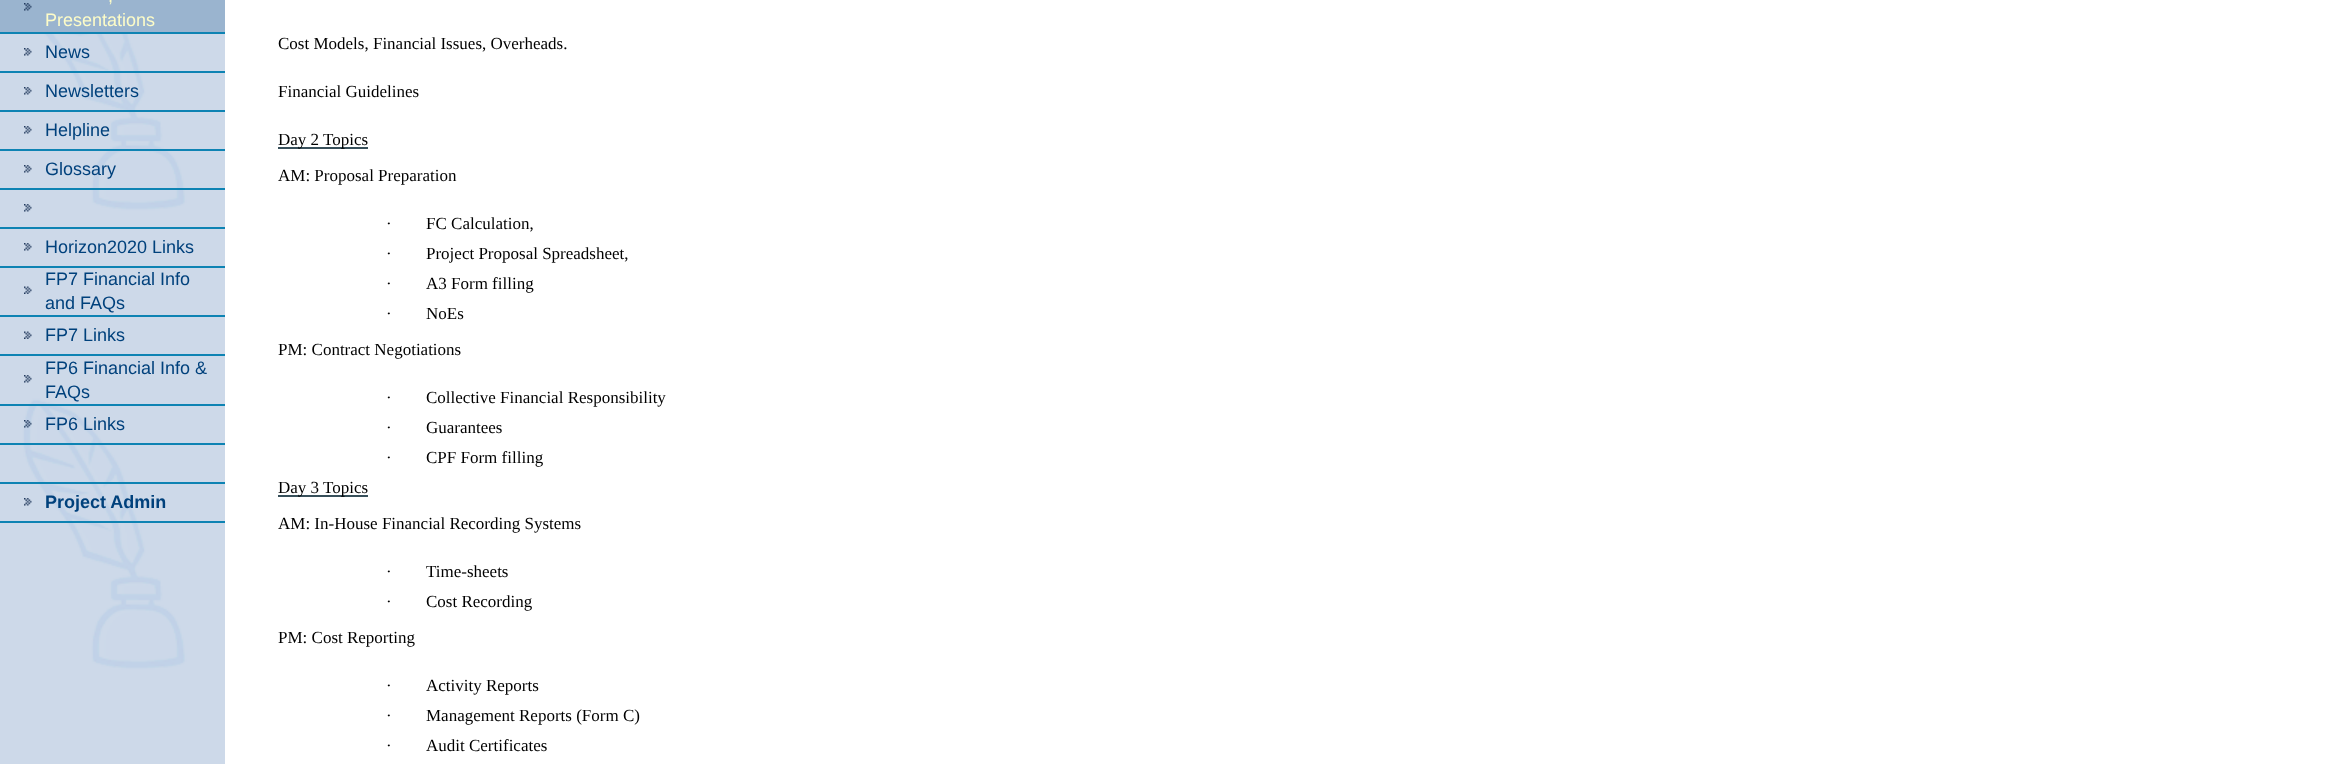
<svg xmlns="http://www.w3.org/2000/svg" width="2338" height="764">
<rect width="100%" height="100%" fill="#fff"/>
<image x="0" y="34" width="225" height="730" href="media/1.png"/>
<rect width="225" height="32" fill="#9ab4cf"/>
<image x="24" y="3" width="8" height="8" href="media/2.png"/>
<text x="108" y="2" style="font-family:Liberation Sans;font-size:18px;fill:#fdfcc8">,</text>
<text x="45" y="26" style="font-family:Liberation Sans;font-size:18px;fill:#fdfcc8">Presentations</text>
<rect y="32" width="225" height="2" fill="#0e83b3"/>
<image x="24" y="48" width="8" height="8" href="media/3.png"/>
<text x="45" y="58" style="font-family:Liberation Sans;font-size:18px;fill:#00417c">News</text>
<rect y="71" width="225" height="2" fill="#0e83b3"/>
<image x="24" y="87" width="8" height="8" href="media/3.png"/>
<text x="45" y="97" style="font-family:Liberation Sans;font-size:18px;fill:#00417c">Newsletters</text>
<rect y="110" width="225" height="2" fill="#0e83b3"/>
<image x="24" y="126" width="8" height="8" href="media/3.png"/>
<text x="45" y="136" style="font-family:Liberation Sans;font-size:18px;fill:#00417c">Helpline</text>
<rect y="149" width="225" height="2" fill="#0e83b3"/>
<image x="24" y="165" width="8" height="8" href="media/3.png"/>
<text x="45" y="175" style="font-family:Liberation Sans;font-size:18px;fill:#00417c">Glossary</text>
<rect y="188" width="225" height="2" fill="#0e83b3"/>
<image x="24" y="204" width="8" height="8" href="media/3.png"/>
<rect y="227" width="225" height="2" fill="#0e83b3"/>
<image x="24" y="243" width="8" height="8" href="media/3.png"/>
<text x="45" y="253" style="font-family:Liberation Sans;font-size:18px;fill:#00417c">Horizon2020 Links</text>
<rect y="266" width="225" height="2" fill="#0e83b3"/>
<image x="24" y="286" width="8" height="8" href="media/4.png"/>
<text x="45" y="285" style="font-family:Liberation Sans;font-size:18px;fill:#00417c">FP7 Financial Info</text>
<text x="45" y="309" style="font-family:Liberation Sans;font-size:18px;fill:#00417c">and FAQs</text>
<rect y="315" width="225" height="2" fill="#0e83b3"/>
<image x="24" y="331" width="8" height="8" href="media/4.png"/>
<text x="45" y="341" style="font-family:Liberation Sans;font-size:18px;fill:#00417c">FP7 Links</text>
<rect y="354" width="225" height="2" fill="#0e83b3"/>
<image x="24" y="375" width="8" height="8" href="media/3.png"/>
<text x="45" y="374" style="font-family:Liberation Sans;font-size:18px;fill:#00417c">FP6 Financial Info &amp;</text>
<text x="45" y="398" style="font-family:Liberation Sans;font-size:18px;fill:#00417c">FAQs</text>
<rect y="404" width="225" height="2" fill="#0e83b3"/>
<image x="24" y="420" width="8" height="8" href="media/5.png"/>
<text x="45" y="430" style="font-family:Liberation Sans;font-size:18px;fill:#00417c">FP6 Links</text>
<rect y="443" width="225" height="2" fill="#0e83b3"/>
<rect y="482" width="225" height="2" fill="#0e83b3"/>
<image x="24" y="498" width="8" height="8" href="media/3.png"/>
<text x="45" y="508" style="font-family:Liberation Sans;font-size:18px;font-weight:bold;fill:#00417c">Project Admin</text>
<rect y="521" width="225" height="2" fill="#0e83b3"/>
<text x="278" y="49" style="font-family:Liberation Serif;font-size:17px;fill:#000">Cost Models, Financial Issues, Overheads.</text>
<text x="278" y="97" style="font-family:Liberation Serif;font-size:17px;fill:#000">Financial Guidelines</text>
<rect x="278" y="147" width="90" height="2" fill="#374f5a"/>
<text x="278" y="145" style="font-family:Liberation Serif;font-size:17px;fill:#000">Day 2 Topics</text>
<text x="278" y="181" style="font-family:Liberation Serif;font-size:17px;fill:#000">AM: Proposal Preparation</text>
<text x="386" y="229" style="font-family:Liberation Serif;font-size:17px;fill:#000">·</text>
<text x="426" y="229" style="font-family:Liberation Serif;font-size:17px;fill:#000">FC Calculation,</text>
<text x="386" y="259" style="font-family:Liberation Serif;font-size:17px;fill:#000">·</text>
<text x="426" y="259" style="font-family:Liberation Serif;font-size:17px;fill:#000">Project Proposal Spreadsheet,</text>
<text x="386" y="289" style="font-family:Liberation Serif;font-size:17px;fill:#000">·</text>
<text x="426" y="289" style="font-family:Liberation Serif;font-size:17px;fill:#000">A3 Form filling</text>
<text x="386" y="319" style="font-family:Liberation Serif;font-size:17px;fill:#000">·</text>
<text x="426" y="319" style="font-family:Liberation Serif;font-size:17px;fill:#000">NoEs</text>
<text x="278" y="355" style="font-family:Liberation Serif;font-size:17px;fill:#000">PM: Contract Negotiations</text>
<text x="386" y="403" style="font-family:Liberation Serif;font-size:17px;fill:#000">·</text>
<text x="426" y="403" style="font-family:Liberation Serif;font-size:17px;fill:#000">Collective Financial Responsibility</text>
<text x="386" y="433" style="font-family:Liberation Serif;font-size:17px;fill:#000">·</text>
<text x="426" y="433" style="font-family:Liberation Serif;font-size:17px;fill:#000">Guarantees</text>
<text x="386" y="463" style="font-family:Liberation Serif;font-size:17px;fill:#000">·</text>
<text x="426" y="463" style="font-family:Liberation Serif;font-size:17px;fill:#000">CPF Form filling</text>
<rect x="278" y="495" width="90" height="2" fill="#374f5a"/>
<text x="278" y="493" style="font-family:Liberation Serif;font-size:17px;fill:#000">Day 3 Topics</text>
<text x="278" y="529" style="font-family:Liberation Serif;font-size:17px;fill:#000">AM: In-House Financial Recording Systems</text>
<text x="386" y="577" style="font-family:Liberation Serif;font-size:17px;fill:#000">·</text>
<text x="426" y="577" style="font-family:Liberation Serif;font-size:17px;fill:#000">Time-sheets</text>
<text x="386" y="607" style="font-family:Liberation Serif;font-size:17px;fill:#000">·</text>
<text x="426" y="607" style="font-family:Liberation Serif;font-size:17px;fill:#000">Cost Recording</text>
<text x="278" y="643" style="font-family:Liberation Serif;font-size:17px;fill:#000">PM: Cost Reporting</text>
<text x="386" y="691" style="font-family:Liberation Serif;font-size:17px;fill:#000">·</text>
<text x="426" y="691" style="font-family:Liberation Serif;font-size:17px;fill:#000">Activity Reports</text>
<text x="386" y="721" style="font-family:Liberation Serif;font-size:17px;fill:#000">·</text>
<text x="426" y="721" style="font-family:Liberation Serif;font-size:17px;fill:#000">Management Reports (Form C)</text>
<text x="386" y="751" style="font-family:Liberation Serif;font-size:17px;fill:#000">·</text>
<text x="426" y="751" style="font-family:Liberation Serif;font-size:17px;fill:#000">Audit Certificates</text>
</svg>
